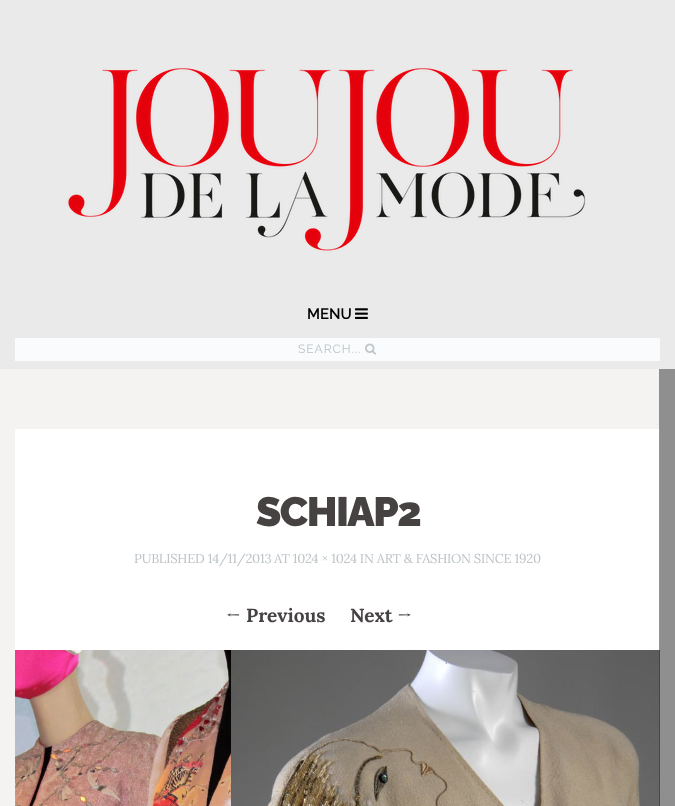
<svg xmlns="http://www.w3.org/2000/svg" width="675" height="806">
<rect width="100%" height="100%" fill="#f4f3f2"/>
<rect width="675" height="369" fill="#eaeaea"/>
<image x="66" y="68" width="520" height="185" href="media/1.png"/>
<text x="307" y="319" style="font-family:Raleway;font-size:15px;font-weight:600;fill:#000">MENU</text>
<image x="355" y="308" width="13" height="11" href="media/2.png"/>
<rect x="15" y="338" width="645" height="23" fill="#f9fbfc"/>
<text x="298" y="353" style="font-family:Raleway;font-size:12px;letter-spacing:1px;fill:#bdc3c7">SEARCH...</text>
<image x="365" y="343" width="11" height="12" href="media/3.png"/>
<rect x="15" y="429" width="645" height="221" fill="#fff"/>
<text x="256" y="526" style="font-family:Raleway;font-size:41px;font-weight:900;letter-spacing:-1.5px;fill:#464242">SCHIAP2</text>
<text x="134" y="563" style="font-family:Lora;font-size:13px;letter-spacing:-0.25px;fill:#bdc3c7">PUBLISHED 14/11/2013</text>
<text x="274" y="563" style="font-family:Lora;font-size:13px;letter-spacing:-0.25px;fill:#bdc3c7">AT 1024 × 1024 IN ART &amp; FASHION SINCE 1920</text>
<text x="226" y="622" style="font-family:Caladea;font-size:19px;font-weight:bold;fill:#464242">←</text>
<text x="246" y="622" style="font-family:Lora;font-size:19px;font-weight:bold;fill:#464242">Previous</text>
<text x="350" y="622" style="font-family:Lora;font-size:19px;font-weight:bold;fill:#464242">Next</text>
<text x="397" y="622" style="font-family:Caladea;font-size:19px;font-weight:bold;fill:#464242">→</text>
<image x="15" y="650" width="645" height="156" href="media/4.png"/>
<rect x="659" y="369" width="16" height="437" fill="#2d2f3082"/>
</svg>
